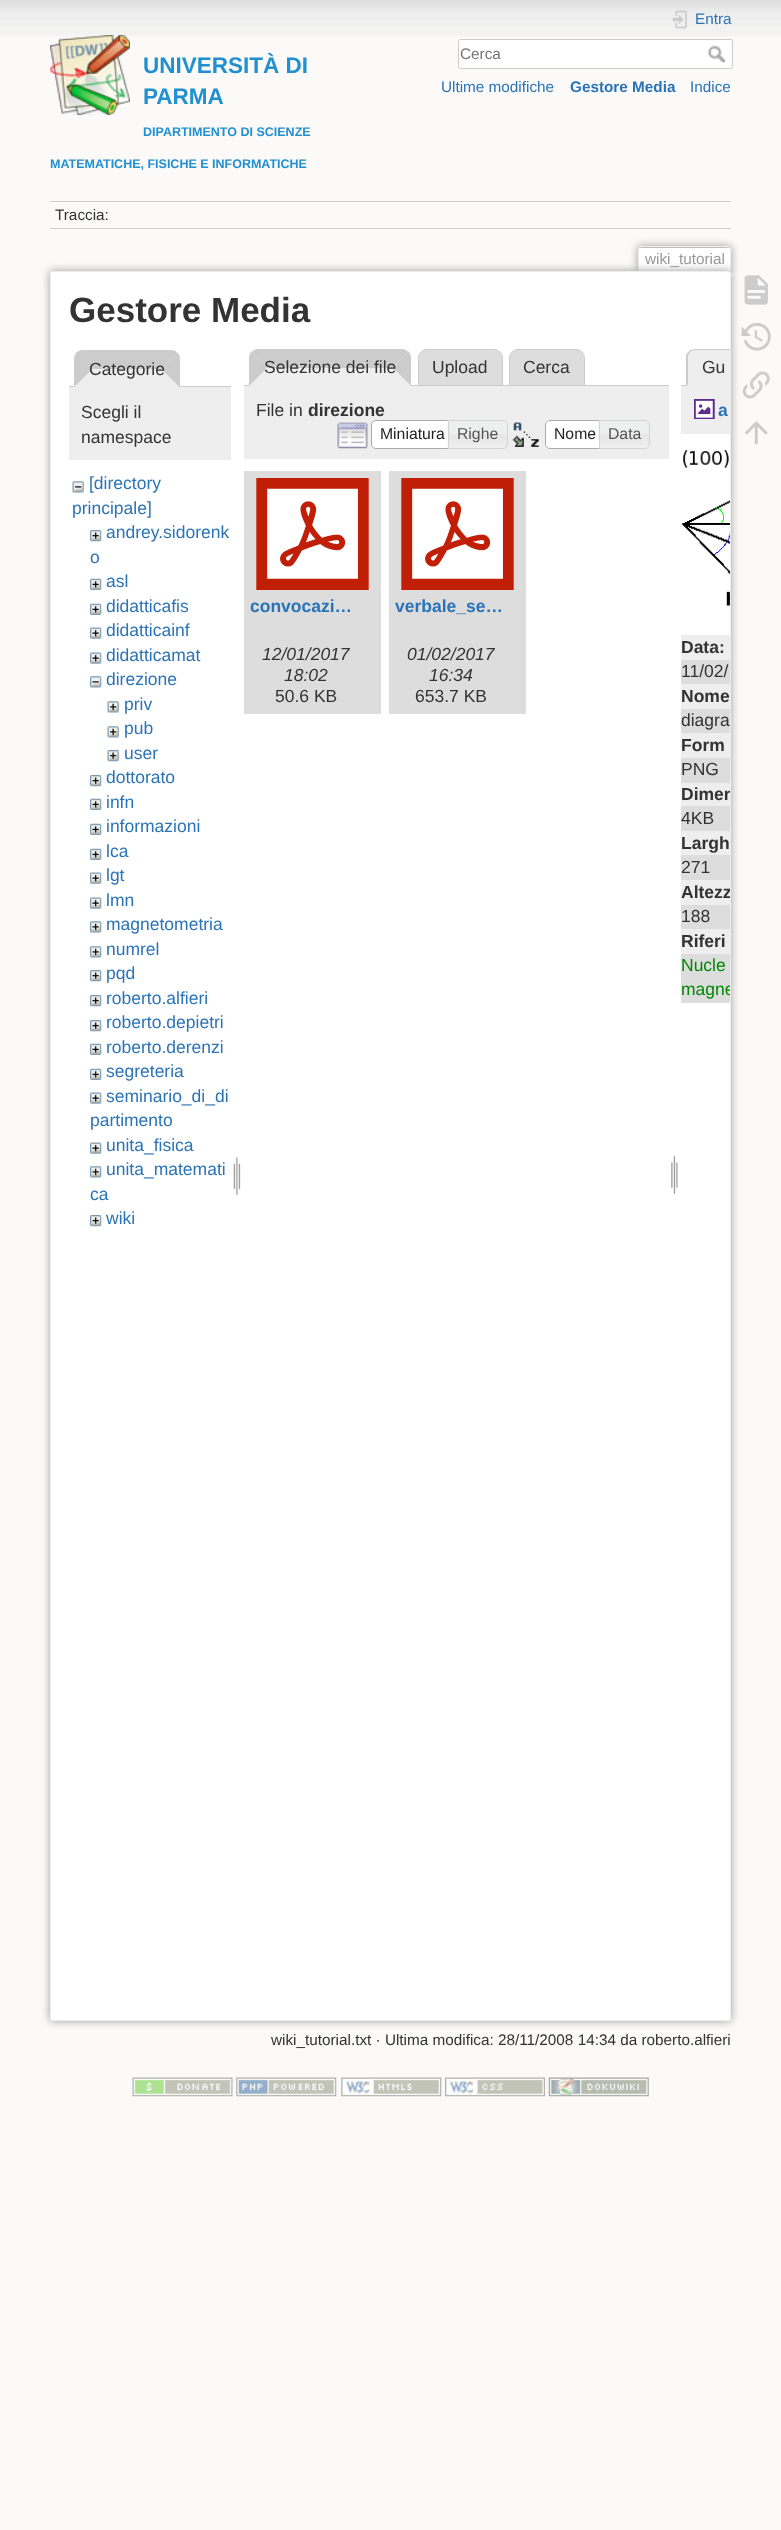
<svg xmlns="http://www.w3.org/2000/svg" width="781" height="2530">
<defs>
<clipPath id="clip1"><rect x="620" y="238" width="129" height="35"/></clipPath>
<clipPath id="clip2"><rect x="51" y="273" width="679" height="1747" rx="1"/></clipPath>
</defs>
<rect width="100%" height="100%" fill="#fbfaf9"/>
<image x="0" y="0" width="781" height="36" href="media/1.png"/>
<image x="50" y="35" width="80" height="80" href="media/2.png"/>
<text x="143" y="73" style="font-family:Liberation Sans;font-size:22.5px;font-weight:bold;fill:#2090d0">UNIVERSITÀ DI</text>
<text x="143" y="104" style="font-family:Liberation Sans;font-size:22.5px;font-weight:bold;fill:#2090d0">PARMA</text>
<text x="143" y="136" style="font-family:Liberation Sans;font-size:12.5px;font-weight:bold;fill:#2090d0">DIPARTIMENTO DI SCIENZE</text>
<text x="50" y="168" style="font-family:Liberation Sans;font-size:12.5px;font-weight:bold;fill:#2090d0">MATEMATICHE, FISICHE E INFORMATICHE</text>
<image x="672" y="10" width="15" height="19" href="media/3.png"/>
<text x="695" y="24" style="font-family:Liberation Sans;font-size:15.3px;fill:#2b73b7">Entra</text>
<rect x="458.5" y="39.5" width="274" height="29" rx="2" fill="#fff" stroke="#ccc"/>
<text x="460" y="59" style="font-family:Liberation Sans;font-size:15.3px;fill:#757575">Cerca</text>
<image x="707" y="45" width="18" height="18" href="media/4.png"/>
<text x="441" y="92" style="font-family:Liberation Sans;font-size:15.3px;fill:#2b73b7">Ultime modifiche</text>
<text x="570" y="92" style="font-family:Liberation Sans;font-size:15.3px;font-weight:bold;fill:#2b73b7">Gestore Media</text>
<text x="690" y="92" style="font-family:Liberation Sans;font-size:15.3px;fill:#2b73b7">Indice</text>
<rect x="50" y="201" width="681" height="1" fill="#ccc"/>
<rect x="50" y="229" width="681" height="1" fill="#fff"/>
<rect x="50" y="203" width="681" height="1" fill="#fff"/>
<rect x="50" y="228" width="681" height="1" fill="#ccc"/>
<text x="55" y="220" style="font-family:Liberation Sans;font-size:15.3px;fill:#333">Traccia:</text>
<g clip-path="url(#clip1)">
<rect x="638" y="246" width="93" height="27" rx="2.5" fill="#999" filter="blur(4px)"/>
</g>
<path d="M640 248h89c.5 0 1 .5 1 1v24h-91v-24c0-.5 .5-1 1-1z" fill="#fff"/>
<rect x="639" y="246" width="91" height="1" fill="#eee"/>
<rect x="730" y="248" width="1" height="25" fill="#eee"/>
<rect x="638" y="248" width="1" height="25" fill="#eee"/>
<text x="645" y="264" style="font-family:Liberation Sans;font-size:15.3px;fill:#999">wiki_tutorial</text>
<rect x="50" y="271" width="681" height="1750" rx="2.5" fill="#999" filter="blur(4.5px)"/>
<rect x="50.5" y="271.5" width="680" height="1749" rx="2" fill="#fff" stroke="#eee"/>
<text x="69" y="322" style="font-family:Liberation Sans;font-size:35px;font-weight:bold;fill:#333">Gestore Media</text>
<rect x="69" y="387" width="162" height="73" fill="#eee"/>
<rect x="69" y="386" width="162" height="1" fill="#ccc"/>
<path d="M83 350h88c5 0 9 4 9 9v29h-106v-29c0-5 4-9 9-9z" fill="#eee"/>
<path d="M82 350h89c3 0 5 1 6 3l-16 16h-69l-16-16c2-2 4-3 6-3z" fill="#ccc"/>
<path d="M177.5 352.5l-16.5 16.5l19 18.5v-28.5c0-2.5-1-5-2.5-6.5z" fill="#ccc"/>
<path d="M180 388l-19-19h-69l-18 18z" fill="#eee"/>
<path d="M76.5 352.5c-1.5 2-2.5 4-2.5 6.5v28l18.5-18z" fill="#ccc"/>
<text x="89" y="375" style="font-family:Liberation Sans;font-size:17.5px;fill:#333">Categorie</text>
<text x="81" y="418" style="font-family:Liberation Sans;font-size:17.5px;fill:#333">Scegli il</text>
<text x="81" y="443" style="font-family:Liberation Sans;font-size:17.5px;fill:#333">namespace</text>
<image x="72" y="481" width="12" height="12" href="media/5.png"/>
<text x="89" y="489" style="font-family:Liberation Sans;font-size:17.5px;fill:#2b73b7">[directory</text>
<text x="72" y="514" style="font-family:Liberation Sans;font-size:17.5px;fill:#2b73b7">principale]</text>
<image x="90" y="530" width="12" height="12" href="media/6.png"/>
<text x="106" y="538" style="font-family:Liberation Sans;font-size:17.5px;fill:#2b73b7">andrey.sidorenk</text>
<text x="90" y="563" style="font-family:Liberation Sans;font-size:17.5px;fill:#2b73b7">o</text>
<image x="90" y="578" width="12" height="12" href="media/7.png"/>
<text x="106" y="587" style="font-family:Liberation Sans;font-size:17.5px;fill:#2b73b7">asl</text>
<image x="90" y="603" width="12" height="12" href="media/7.png"/>
<text x="106" y="612" style="font-family:Liberation Sans;font-size:17.5px;fill:#2b73b7">didatticafis</text>
<image x="90" y="627" width="12" height="12" href="media/8.png"/>
<text x="106" y="636" style="font-family:Liberation Sans;font-size:17.5px;fill:#2b73b7">didatticainf</text>
<image x="90" y="652" width="12" height="12" href="media/8.png"/>
<text x="106" y="661" style="font-family:Liberation Sans;font-size:17.5px;fill:#2b73b7">didatticamat</text>
<image x="90" y="676" width="12" height="12" href="media/9.png"/>
<text x="106" y="685" style="font-family:Liberation Sans;font-size:17.5px;fill:#2b73b7">direzione</text>
<image x="107" y="701" width="12" height="12" href="media/10.png"/>
<text x="124" y="710" style="font-family:Liberation Sans;font-size:17.5px;fill:#2b73b7">priv</text>
<image x="107" y="726" width="12" height="12" href="media/10.png"/>
<text x="124" y="734" style="font-family:Liberation Sans;font-size:17.5px;fill:#2b73b7">pub</text>
<image x="107" y="750" width="12" height="12" href="media/11.png"/>
<text x="124" y="759" style="font-family:Liberation Sans;font-size:17.5px;fill:#2b73b7">user</text>
<image x="90" y="775" width="12" height="12" href="media/12.png"/>
<text x="106" y="783" style="font-family:Liberation Sans;font-size:17.5px;fill:#2b73b7">dottorato</text>
<image x="90" y="798" width="12" height="12" href="media/7.png"/>
<text x="106" y="808" style="font-family:Liberation Sans;font-size:17.5px;fill:#2b73b7">infn</text>
<image x="90" y="823" width="12" height="12" href="media/7.png"/>
<text x="106" y="832" style="font-family:Liberation Sans;font-size:17.5px;fill:#2b73b7">informazioni</text>
<image x="90" y="848" width="12" height="12" href="media/7.png"/>
<text x="106" y="857" style="font-family:Liberation Sans;font-size:17.5px;fill:#2b73b7">lca</text>
<image x="90" y="872" width="12" height="12" href="media/8.png"/>
<text x="106" y="881" style="font-family:Liberation Sans;font-size:17.5px;fill:#2b73b7">lgt</text>
<image x="90" y="897" width="12" height="12" href="media/8.png"/>
<text x="106" y="906" style="font-family:Liberation Sans;font-size:17.5px;fill:#2b73b7">lmn</text>
<image x="90" y="921" width="12" height="12" href="media/13.png"/>
<text x="106" y="930" style="font-family:Liberation Sans;font-size:17.5px;fill:#2b73b7">magnetometria</text>
<image x="90" y="946" width="12" height="12" href="media/13.png"/>
<text x="106" y="955" style="font-family:Liberation Sans;font-size:17.5px;fill:#2b73b7">numrel</text>
<image x="90" y="970" width="12" height="12" href="media/6.png"/>
<text x="106" y="979" style="font-family:Liberation Sans;font-size:17.5px;fill:#2b73b7">pqd</text>
<image x="90" y="995" width="12" height="12" href="media/6.png"/>
<text x="106" y="1004" style="font-family:Liberation Sans;font-size:17.5px;fill:#2b73b7">roberto.alfieri</text>
<image x="90" y="1020" width="12" height="12" href="media/6.png"/>
<text x="106" y="1028" style="font-family:Liberation Sans;font-size:17.5px;fill:#2b73b7">roberto.depietri</text>
<image x="90" y="1043" width="12" height="12" href="media/7.png"/>
<text x="106" y="1053" style="font-family:Liberation Sans;font-size:17.5px;fill:#2b73b7">roberto.derenzi</text>
<image x="90" y="1068" width="12" height="12" href="media/7.png"/>
<text x="106" y="1077" style="font-family:Liberation Sans;font-size:17.5px;fill:#2b73b7">segreteria</text>
<image x="90" y="1092" width="12" height="12" href="media/8.png"/>
<text x="106" y="1102" style="font-family:Liberation Sans;font-size:17.5px;fill:#2b73b7">seminario_di_di</text>
<text x="90" y="1126" style="font-family:Liberation Sans;font-size:17.5px;fill:#2b73b7">partimento</text>
<image x="90" y="1142" width="12" height="12" href="media/8.png"/>
<text x="106" y="1151" style="font-family:Liberation Sans;font-size:17.5px;fill:#2b73b7">unita_fisica</text>
<image x="90" y="1166" width="12" height="12" href="media/13.png"/>
<text x="106" y="1175" style="font-family:Liberation Sans;font-size:17.5px;fill:#2b73b7">unita_matemati</text>
<text x="90" y="1200" style="font-family:Liberation Sans;font-size:17.5px;fill:#2b73b7">ca</text>
<image x="90" y="1215" width="12" height="12" href="media/6.png"/>
<text x="106" y="1224" style="font-family:Liberation Sans;font-size:17.5px;fill:#2b73b7">wiki</text>
<image x="233" y="1156" width="8" height="40" href="media/14.png"/>
<path d="M427 349.5h67c4.5 0 8.5 4 8.5 8.5v27.5h-84v-27.5c0-4.5 4-8.5 8.5-8.5z" fill="#ddd" stroke="#ccc"/>
<path d="M518 349.5h58c4.5 0 8.5 4 8.5 8.5v27.5h-75v-27.5c0-4.5 4-8.5 8.5-8.5z" fill="#ddd" stroke="#ccc"/>
<rect x="244" y="385" width="425" height="1" fill="#ccc"/>
<path d="M258 349h144c5 0 9 4 9 9v28h-162v-28c0-5 4-9 9-9z" fill="#eee"/>
<path d="M258 349c-2 0-5 1-6 3l16 16h124l16-16c-1-2-4-3-6-3z" fill="#ccc"/>
<path d="M411 386v-28c0-2.5-1-5-2.5-6.5l-16 16z" fill="#ccc"/>
<path d="M411 386l-19-18h-124l-19 18z" fill="#eee"/>
<path d="M251.5 351.5c-1.5 1.5-2.5 4-2.5 6.5v28l18.5-18.5z" fill="#ccc"/>
<text x="264" y="373" style="font-family:Liberation Sans;font-size:17.5px;fill:#333">Selezione dei file</text>
<text x="432" y="373" style="font-family:Liberation Sans;font-size:17.5px;fill:#333">Upload</text>
<text x="523" y="373" style="font-family:Liberation Sans;font-size:17.5px;fill:#333">Cerca</text>
<rect x="244" y="386" width="425" height="73" fill="#eee"/>
<text x="256" y="416" style="font-family:Liberation Sans;font-size:17.5px;fill:#333">File in</text>
<text x="308" y="416" style="font-family:Liberation Sans;font-size:17.5px;font-weight:bold;fill:#333">direzione</text>
<image x="337" y="422" width="31" height="27" href="media/15.png"/>
<path d="M376 420.5h77.5v28h-77.5c-2.5 0-4.5-2-4.5-4.5v-19c0-2.5 2-4.5 4.5-4.5z" fill="#fff" stroke="#aaa"/>
<text x="380" y="439" style="font-family:Liberation Sans;font-size:15.75px;fill:#212121">Miniatura</text>
<image x="447" y="420" width="60" height="29" href="media/16.png"/>
<path d="M448.5 420.5h54.5c2.5 0 4.5 2 4.5 4.5v19c0 2.5-2 4.5-4.5 4.5h-54.5z" fill="none" stroke="#d3d3d3"/>
<text x="457" y="439" style="font-family:Liberation Sans;font-size:15.75px;fill:#555">Righe</text>
<image x="512" y="422" width="27" height="25" href="media/17.png"/>
<path d="M550 420h55v29h-55c-3 0-5-2-5-5v-19c0-3 2-5 5-5z" fill="#fff"/>
<rect x="546" y="421" width="1" height="1" fill="#fbfbfb"/>
<path d="M550 420.5h54.5v28h-54.5c-2.5 0-4.5-2-4.5-4.5v-19c0-2.5 2-4.5 4.5-4.5z" fill="none" stroke="#aaa"/>
<text x="554" y="439" style="font-family:Liberation Sans;font-size:15.75px;fill:#212121">Nome</text>
<image x="598" y="420" width="52" height="29" href="media/18.png"/>
<path d="M599.5 420.5h45.5c2.5 0 4.5 2 4.5 4.5v19c0 2.5-2 4.5-4.5 4.5h-45.5z" fill="none" stroke="#d3d3d3"/>
<text x="608" y="439" style="font-family:Liberation Sans;font-size:15.75px;fill:#555">Data</text>
<rect x="244" y="471" width="137" height="243" fill="#ddd"/>
<image x="256" y="478" width="113" height="112" href="media/19.png"/>
<text x="250" y="612" style="font-family:Liberation Sans;font-size:17.5px;font-weight:bold;fill:#2b73b7">convocazi…</text>
<text x="262" y="660" style="font-family:Liberation Sans;font-size:17.5px;font-style:italic;fill:#333">12/01/2017</text>
<text x="284" y="681" style="font-family:Liberation Sans;font-size:17.5px;font-style:italic;fill:#333">18:02</text>
<text x="275" y="702" style="font-family:Liberation Sans;font-size:17.5px;fill:#333">50.6 KB</text>
<rect x="389" y="471" width="137" height="243" fill="#ddd"/>
<image x="401" y="478" width="113" height="112" href="media/19.png"/>
<text x="395" y="612" style="font-family:Liberation Sans;font-size:17.5px;font-weight:bold;fill:#2b73b7">verbale_se…</text>
<text x="407" y="660" style="font-family:Liberation Sans;font-size:17.5px;font-style:italic;fill:#333">01/02/2017</text>
<text x="429" y="681" style="font-family:Liberation Sans;font-size:17.5px;font-style:italic;fill:#333">16:34</text>
<text x="415" y="702" style="font-family:Liberation Sans;font-size:17.5px;fill:#333">653.7 KB</text>
<image x="671" y="1155" width="7" height="39" href="media/20.png"/>
<path d="M695 349h35v37h-44v-28c0-5 4-9 9-9z" fill="#eee"/>
<path d="M695 349h35v1h-35c-2 0-4 1-5 2l-1-1c1-1 4-2 6-2z" fill="#ccc"/>
<path d="M688 384.5l-2 1.5v-30c.5-2 1.5-3.5 3-4.5l1 1c-1.5 1-2 3-2 5.5z" fill="#ccc"/>
<text x="702" y="373" style="font-family:Liberation Sans;font-size:17.5px;fill:#333">Gu</text>
<rect x="681" y="385" width="5" height="1" fill="#ccc"/>
<rect x="681" y="386" width="49" height="48" fill="#eee"/>
<image x="694" y="399" width="21" height="20" href="media/21.png"/>
<text x="718" y="416" style="font-family:Liberation Sans;font-size:17.5px;font-weight:bold;fill:#2b73b7">a</text>
<image x="682" y="450" width="48" height="156" href="media/22.png"/>
<rect x="681" y="635" width="49" height="25" fill="#eee"/>
<text x="681" y="653" style="font-family:Liberation Sans;font-size:17.5px;font-weight:bold;fill:#333">Data:</text>
<rect x="681" y="660" width="49" height="24" fill="#ddd"/>
<text x="681" y="677" style="font-family:Liberation Sans;font-size:17.5px;fill:#333">11/02/</text>
<rect x="681" y="684" width="49" height="25" fill="#eee"/>
<text x="681" y="702" style="font-family:Liberation Sans;font-size:17.5px;font-weight:bold;fill:#333">Nome</text>
<rect x="681" y="709" width="49" height="24" fill="#ddd"/>
<text x="681" y="726" style="font-family:Liberation Sans;font-size:17.5px;fill:#333">diagra</text>
<rect x="681" y="733" width="49" height="25" fill="#eee"/>
<text x="681" y="751" style="font-family:Liberation Sans;font-size:17.5px;font-weight:bold;fill:#333">Form</text>
<rect x="681" y="758" width="49" height="25" fill="#ddd"/>
<text x="681" y="775" style="font-family:Liberation Sans;font-size:17.5px;fill:#333">PNG</text>
<rect x="681" y="783" width="49" height="23" fill="#eee"/>
<g clip-path="url(#clip2)">
<text x="681" y="800" style="font-family:Liberation Sans;font-size:17.5px;font-weight:bold;fill:#333">Dimen</text>
</g>
<rect x="681" y="806" width="49" height="25" fill="#ddd"/>
<text x="681" y="824" style="font-family:Liberation Sans;font-size:17.5px;fill:#333">4KB</text>
<rect x="681" y="831" width="49" height="24" fill="#eee"/>
<text x="681" y="849" style="font-family:Liberation Sans;font-size:17.5px;font-weight:bold;fill:#333">Largh</text>
<rect x="681" y="855" width="49" height="25" fill="#ddd"/>
<text x="681" y="873" style="font-family:Liberation Sans;font-size:17.5px;fill:#333">271</text>
<rect x="681" y="880" width="49" height="25" fill="#eee"/>
<g clip-path="url(#clip2)">
<text x="681" y="898" style="font-family:Liberation Sans;font-size:17.5px;font-weight:bold;fill:#333">Altezz</text>
</g>
<rect x="681" y="905" width="49" height="24" fill="#ddd"/>
<text x="681" y="922" style="font-family:Liberation Sans;font-size:17.5px;fill:#333">188</text>
<rect x="681" y="929" width="49" height="25" fill="#eee"/>
<text x="681" y="947" style="font-family:Liberation Sans;font-size:17.5px;font-weight:bold;fill:#333">Riferi</text>
<rect x="681" y="954" width="49" height="49" fill="#ddd"/>
<text x="681" y="971" style="font-family:Liberation Sans;font-size:17.5px;fill:#080">Nucle</text>
<g clip-path="url(#clip2)">
<text x="681" y="995" style="font-family:Liberation Sans;font-size:17.5px;fill:#080">magne</text>
</g>
<text x="271" y="2045" style="font-family:Liberation Sans;font-size:15.3px;fill:#333">wiki_tutorial.txt · Ultima modifica: 28/11/2008 14:34 da roberto.alfieri</text>
<image x="744" y="275" width="24" height="30" href="media/23.png"/>
<image x="741" y="323" width="30" height="28" href="media/24.png"/>
<image x="742" y="371" width="28" height="28" href="media/25.png"/>
<image x="744" y="421" width="24" height="24" href="media/26.png"/>
<image x="132" y="2077" width="101" height="20" href="media/27.png"/>
<image x="236" y="2077" width="101" height="20" href="media/28.png"/>
<image x="341" y="2077" width="101" height="20" href="media/29.png"/>
<image x="445" y="2077" width="100" height="20" href="media/30.png"/>
<image x="548" y="2077" width="101" height="20" href="media/31.png"/>
</svg>
